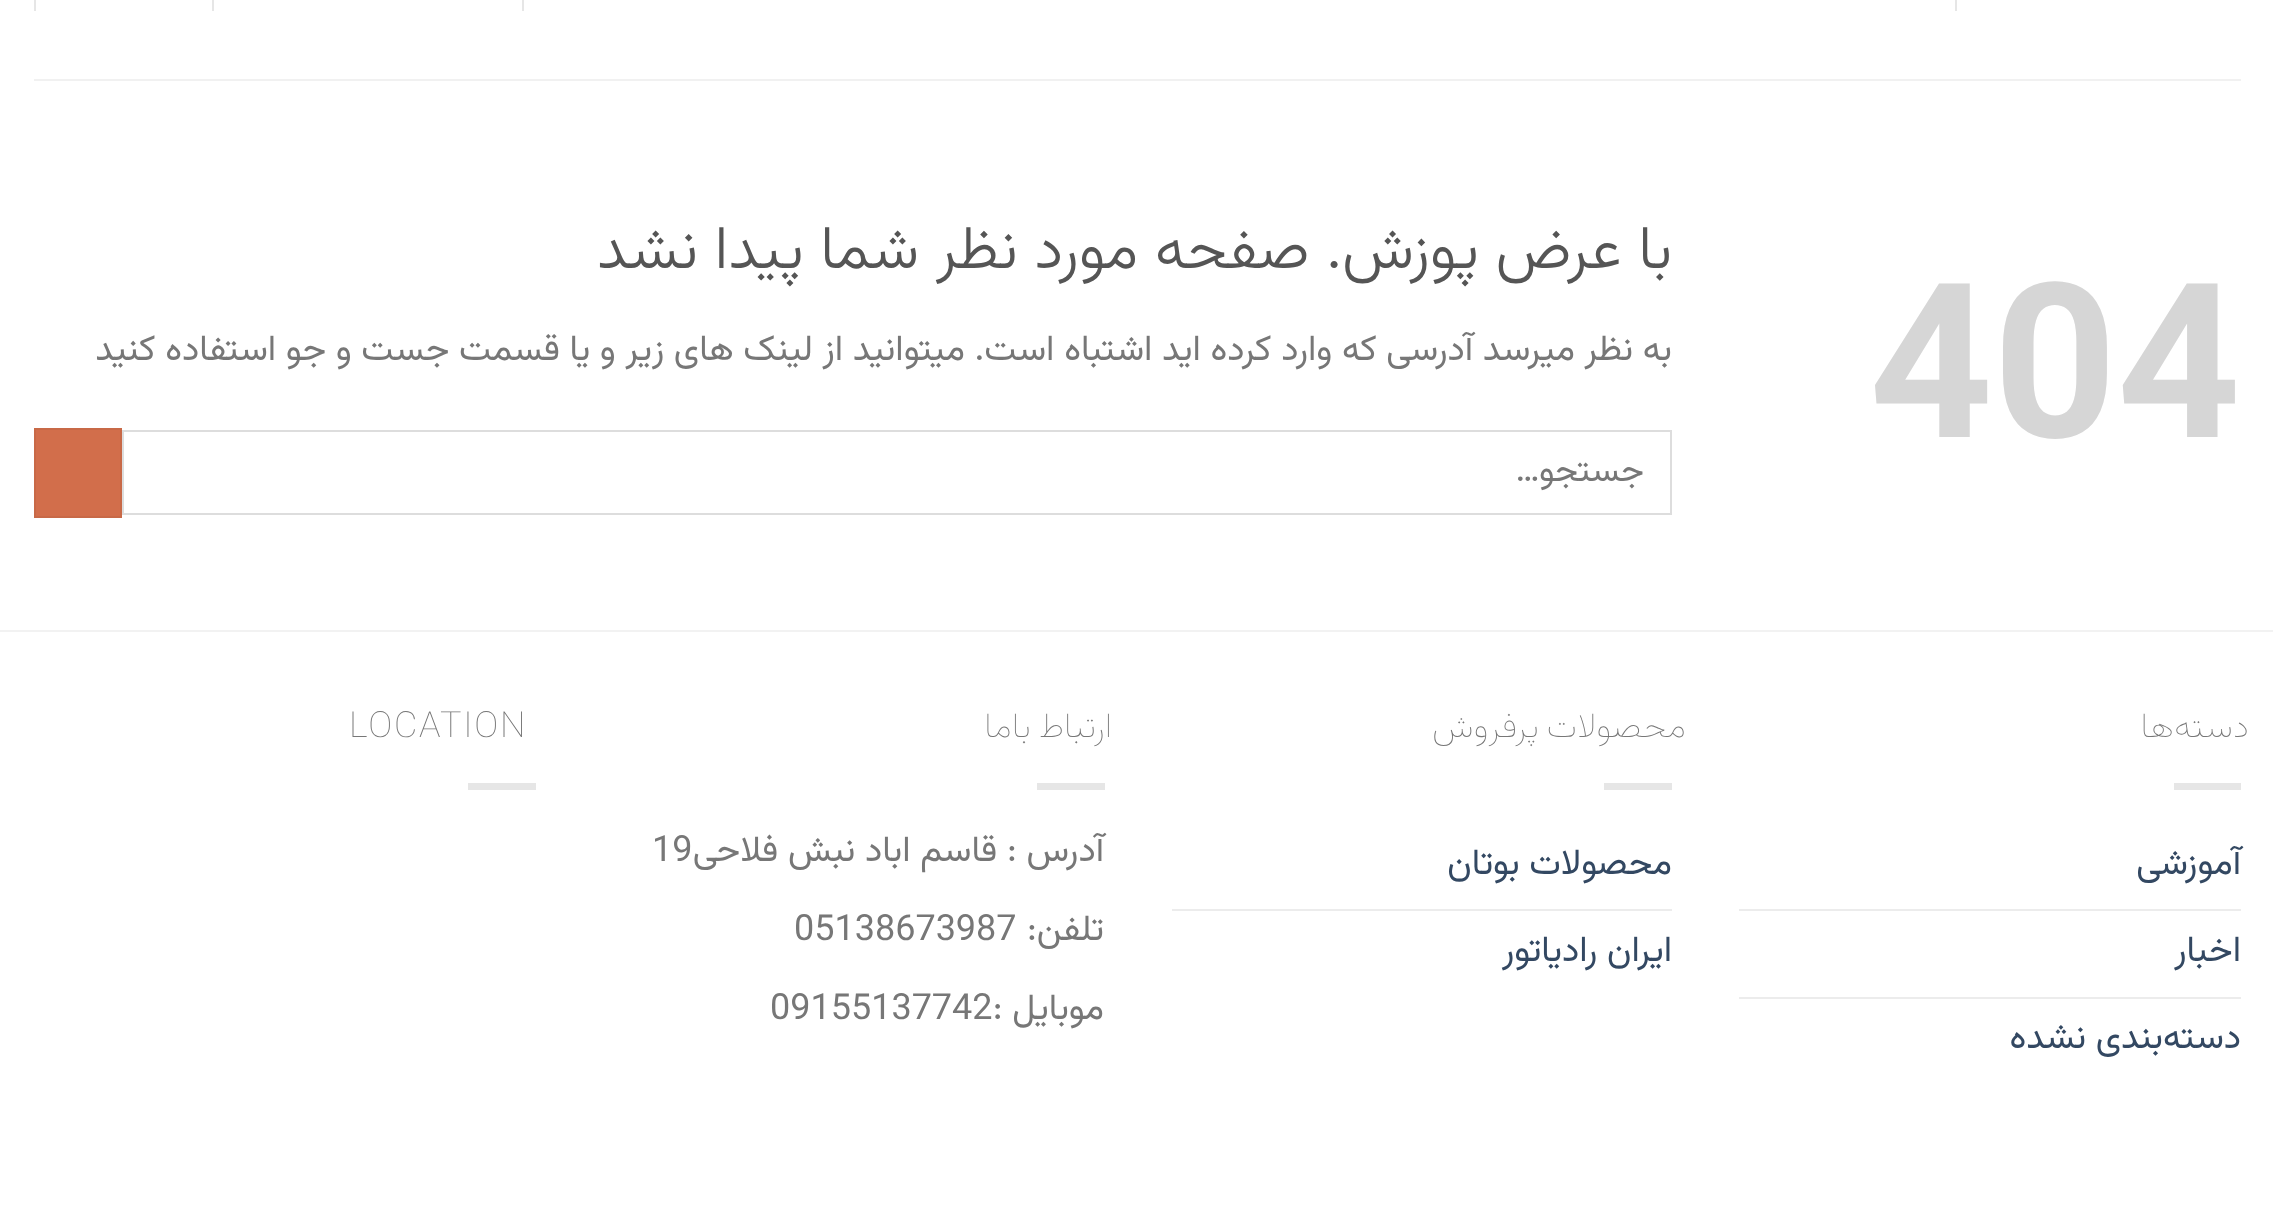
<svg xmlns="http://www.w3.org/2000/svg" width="2273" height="1216">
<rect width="100%" height="100%" fill="#fff"/>
<rect x="1955" width="2" height="11" fill="#e6e6e6"/>
<rect x="522" width="2" height="11" fill="#e6e6e6"/>
<rect x="212" width="2" height="11" fill="#e6e6e6"/>
<rect x="34" width="2" height="11" fill="#e6e6e6"/>
<rect x="34" y="79" width="2207" height="2" fill="#f1f1f1"/>
<text x="1869" y="437" style="font-family:Vazirmatn;font-size:216px;font-weight:bold;fill:#d6d6d6">404</text>
<text x="1672" y="268" style="font-family:Vazirmatn;font-size:61.25px;font-weight:300;direction:rtl;fill:#555">با عرض پوزش. صفحه مورد نظر شما پیدا نشد</text>
<text x="1672" y="360" style="font-family:Vazirmatn;font-size:36px;direction:rtl;fill:#777">به نظر میرسد آدرسی که وارد کرده اید اشتباه است. میتوانید از لینک های زیر و یا قسمت جست و جو استفاده کنید</text>
<rect x="123" y="431" width="1548" height="83" fill="none" stroke="#ddd" stroke-width="2"/>
<text x="1644" y="481" style="font-family:Vazirmatn;font-size:35px;direction:rtl;fill:#777">جستجو…</text>
<rect x="35" y="429" width="86" height="88" fill="#d26e4b" stroke="#c86947" stroke-width="2"/>
<rect y="630" width="2273" height="2" fill="#f2f2f2"/>
<text x="2249" y="737" style="font-family:Vazirmatn;font-size:36px;font-weight:100;letter-spacing:1.75px;direction:rtl;fill:#777">دسته‌ها</text>
<rect x="2174" y="783" width="67" height="7" fill="#e6e6e6"/>
<text x="2241" y="874" style="font-family:Vazirmatn;font-size:36px;direction:rtl;fill:#334862">آموزشی</text>
<rect x="1739" y="909" width="502" height="2" fill="#ececec"/>
<text x="2241" y="961" style="font-family:Vazirmatn;font-size:36px;direction:rtl;fill:#334862">اخبار</text>
<rect x="1739" y="997" width="502" height="2" fill="#ececec"/>
<text x="2241" y="1048" style="font-family:Vazirmatn;font-size:36px;direction:rtl;fill:#334862">دسته‌بندی نشده</text>
<text x="1686" y="737" word-spacing="-2" style="font-family:Vazirmatn;font-size:36px;font-weight:100;letter-spacing:1.75px;direction:rtl;fill:#777">محصولات پرفروش</text>
<rect x="1604" y="783" width="68" height="7" fill="#e6e6e6"/>
<text x="1672" y="874" style="font-family:Vazirmatn;font-size:36px;direction:rtl;fill:#334862">محصولات بوتان</text>
<rect x="1172" y="909" width="500" height="2" fill="#ececec"/>
<text x="1672" y="961" style="font-family:Vazirmatn;font-size:36px;direction:rtl;fill:#334862">ایران رادیاتور</text>
<text x="1112" y="737" word-spacing="-2" style="font-family:Vazirmatn;font-size:36px;font-weight:100;letter-spacing:1.75px;direction:rtl;fill:#777">ارتباط باما</text>
<rect x="1037" y="783" width="68" height="7" fill="#e6e6e6"/>
<text x="1104" y="861" style="font-family:Vazirmatn;font-size:36px;direction:rtl;fill:#777">آدرس : قاسم اباد نبش فلاحی</text>
<text x="652" y="861" style="font-family:Vazirmatn;font-size:36px;fill:#777">19</text>
<text x="1104" y="940" style="font-family:Vazirmatn;font-size:36px;direction:rtl;fill:#777">تلفن:</text>
<text x="794" y="940" style="font-family:Vazirmatn;font-size:36px;fill:#777">05138673987</text>
<text x="1104" y="1019" style="font-family:Vazirmatn;font-size:36px;direction:rtl;fill:#777">موبایل :</text>
<text x="770" y="1019" style="font-family:Vazirmatn;font-size:36px;fill:#777">09155137742</text>
<text x="349" y="737" style="font-family:Vazirmatn;font-size:36px;font-weight:100;letter-spacing:1.75px;fill:#777">LOCATION</text>
<rect x="468" y="783" width="68" height="7" fill="#e6e6e6"/>
</svg>
